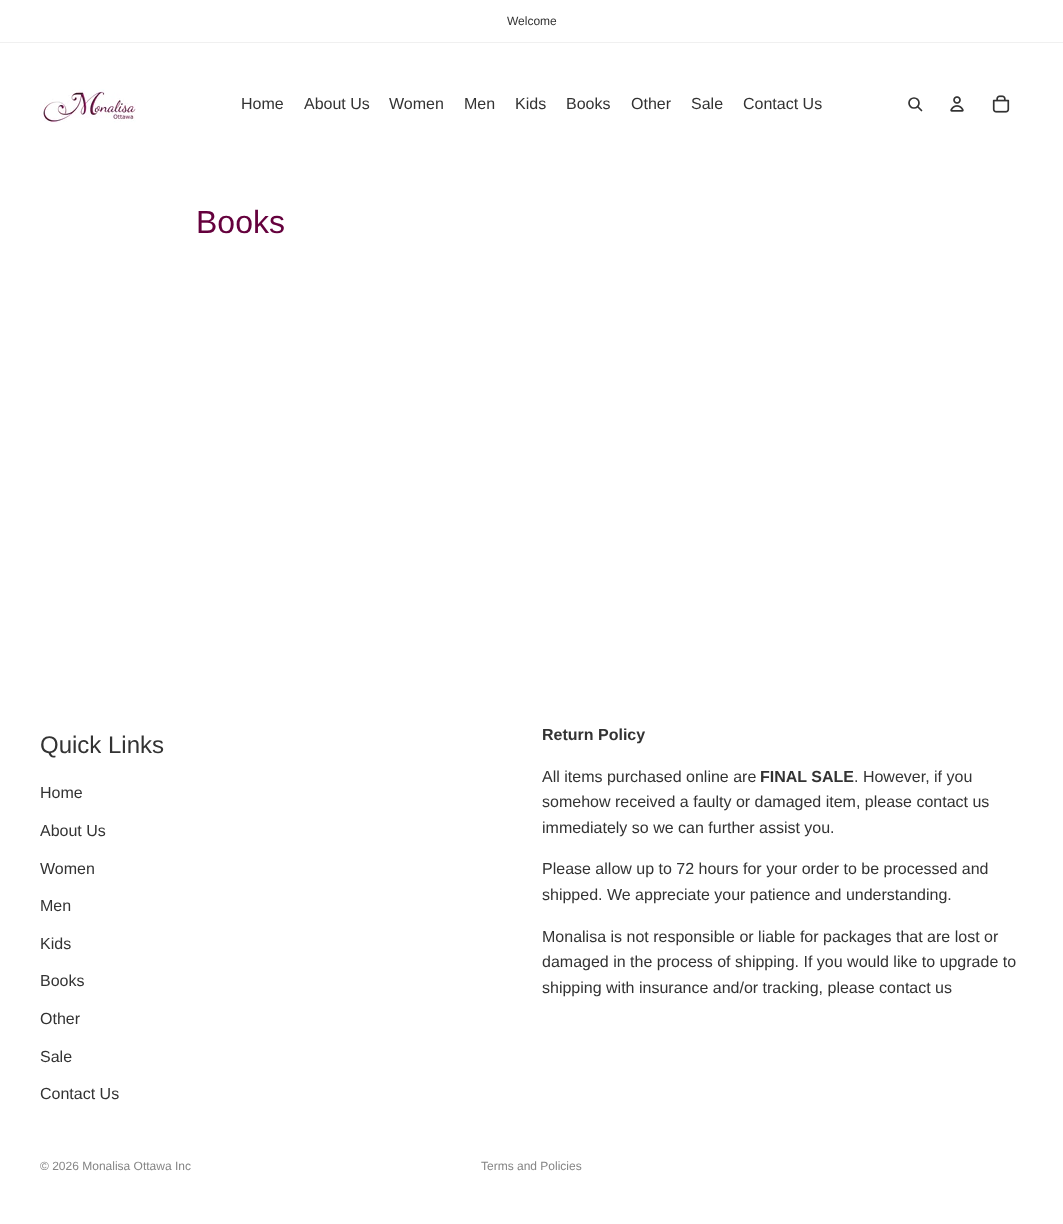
<svg xmlns="http://www.w3.org/2000/svg" width="1063" height="1224">
<rect width="100%" height="100%" fill="#fff"/>
<rect y="42" width="1063" height="1" fill="#f0f0f0"/>
<text x="507" y="25" style="font-family:Liberation Sans;font-size:12px;fill:#333">Welcome</text>
<image x="40" y="89" width="96" height="34" href="media/1.png"/>
<text x="241" y="109" style="font-family:Liberation Sans;font-size:16px;fill:#333">Home</text>
<text x="304" y="109" style="font-family:Liberation Sans;font-size:16px;fill:#333">About Us</text>
<text x="389" y="109" style="font-family:Liberation Sans;font-size:16px;fill:#333">Women</text>
<text x="464" y="109" style="font-family:Liberation Sans;font-size:16px;fill:#333">Men</text>
<text x="515" y="109" style="font-family:Liberation Sans;font-size:16px;fill:#333">Kids</text>
<text x="566" y="109" style="font-family:Liberation Sans;font-size:16px;fill:#333">Books</text>
<text x="631" y="109" style="font-family:Liberation Sans;font-size:16px;fill:#333">Other</text>
<text x="691" y="109" style="font-family:Liberation Sans;font-size:16px;fill:#333">Sale</text>
<text x="743" y="109" style="font-family:Liberation Sans;font-size:16px;fill:#333">Contact Us</text>
<circle cx="914" cy="103" r="5" fill="none" stroke="#333" stroke-width="1.7"/>
<path d="M918 107l3.5 3.5" fill="none" stroke="#333" stroke-width="1.7" stroke-linecap="round" stroke-linejoin="round"/>
<image x="950" y="96" width="14" height="16" href="media/2.png"/>
<image x="992" y="95" width="18" height="18" href="media/3.png"/>
<text x="196" y="233" style="font-family:Liberation Sans;font-size:32px;fill:#65013d">Books</text>
<text x="40" y="753" style="font-family:Liberation Sans;font-size:24px;fill:#333">Quick Links</text>
<text x="40" y="798" style="font-family:Liberation Sans;font-size:16px;fill:#333">Home</text>
<text x="40" y="836" style="font-family:Liberation Sans;font-size:16px;fill:#333">About Us</text>
<text x="40" y="874" style="font-family:Liberation Sans;font-size:16px;fill:#333">Women</text>
<text x="40" y="911" style="font-family:Liberation Sans;font-size:16px;fill:#333">Men</text>
<text x="40" y="949" style="font-family:Liberation Sans;font-size:16px;fill:#333">Kids</text>
<text x="40" y="986" style="font-family:Liberation Sans;font-size:16px;fill:#333">Books</text>
<text x="40" y="1024" style="font-family:Liberation Sans;font-size:16px;fill:#333">Other</text>
<text x="40" y="1062" style="font-family:Liberation Sans;font-size:16px;fill:#333">Sale</text>
<text x="40" y="1099" style="font-family:Liberation Sans;font-size:16px;fill:#333">Contact Us</text>
<text x="542" y="740" style="font-family:Liberation Sans;font-size:16px;font-weight:bold;fill:#333">Return Policy</text>
<text x="542" y="782" style="font-family:Liberation Sans;font-size:16px;fill:#333">All items purchased online are</text>
<text x="760" y="782" style="font-family:Liberation Sans;font-size:16px;font-weight:bold;fill:#333">FINAL SALE</text>
<text x="854" y="782" style="font-family:Liberation Sans;font-size:16px;fill:#333">. However, if you</text>
<text x="542" y="807" style="font-family:Liberation Sans;font-size:16px;fill:#333">somehow received a faulty or damaged item, please contact us</text>
<text x="542" y="833" style="font-family:Liberation Sans;font-size:16px;fill:#333">immediately so we can further assist you.</text>
<text x="542" y="874" style="font-family:Liberation Sans;font-size:16px;fill:#333">Please allow up to 72 hours for your order to be processed and</text>
<text x="542" y="900" style="font-family:Liberation Sans;font-size:16px;fill:#333">shipped. We appreciate your patience and understanding.</text>
<text x="542" y="942" style="font-family:Liberation Sans;font-size:16px;fill:#333">Monalisa is not responsible or liable for packages that are lost or</text>
<text x="542" y="967" style="font-family:Liberation Sans;font-size:16px;fill:#333">damaged in the process of shipping. If you would like to upgrade to</text>
<text x="542" y="993" style="font-family:Liberation Sans;font-size:16px;fill:#333">shipping with insurance and/or tracking, please contact us</text>
<text x="40" y="1170" style="font-family:Liberation Sans;font-size:12px;fill:#858585">© 2026 Monalisa Ottawa Inc</text>
<text x="481" y="1170" style="font-family:Liberation Sans;font-size:12px;fill:#858585">Terms and Policies</text>
</svg>
